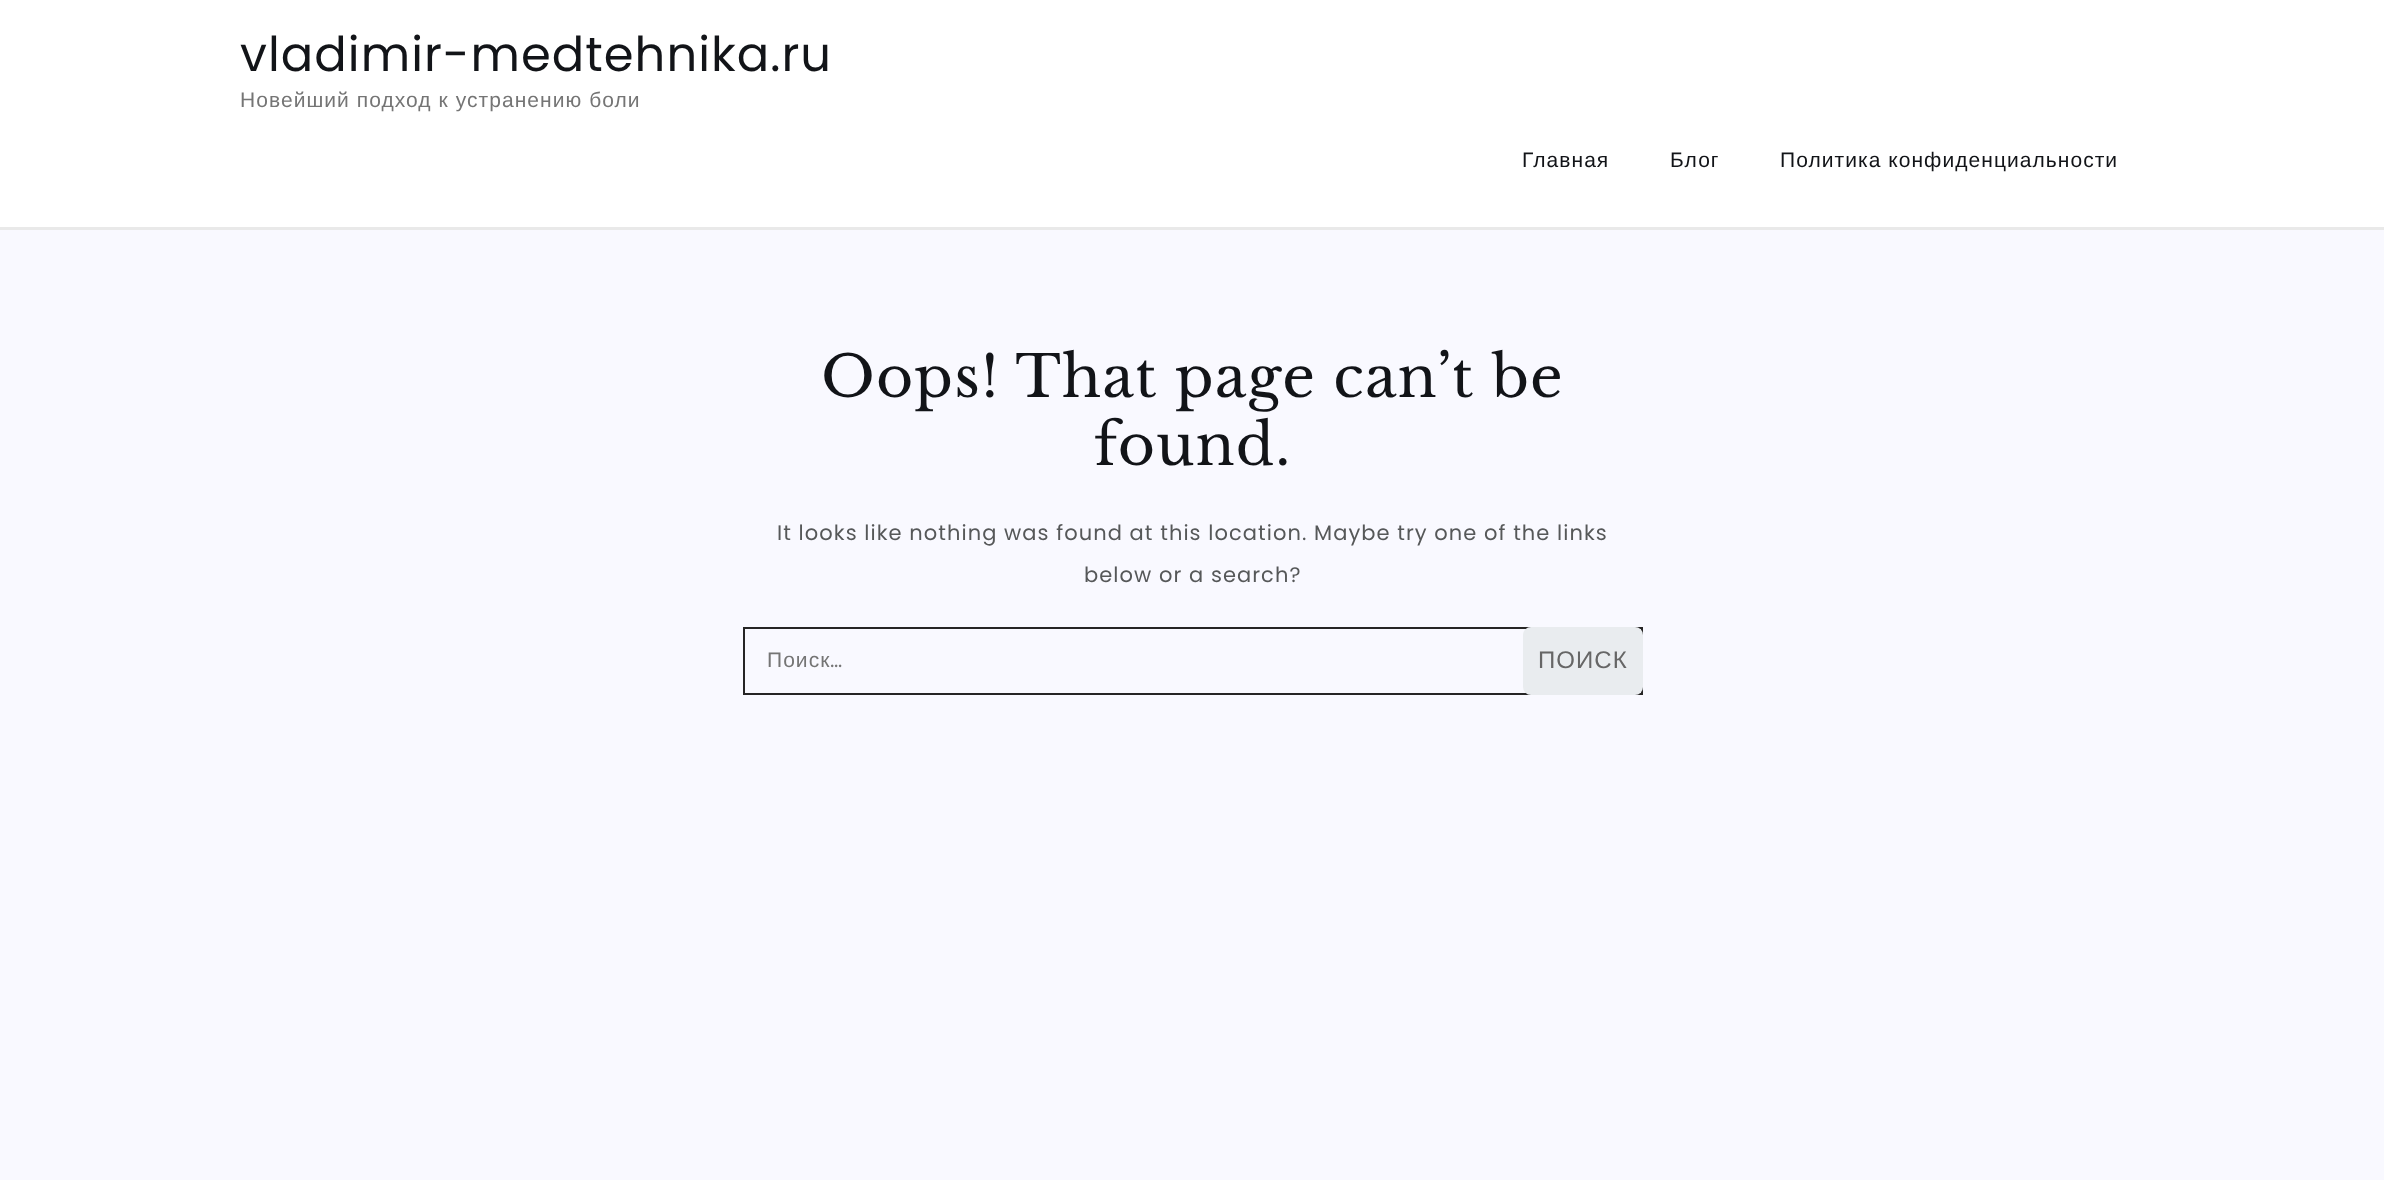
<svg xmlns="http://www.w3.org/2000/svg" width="2384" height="1180">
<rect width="100%" height="100%" fill="#f9f9ff"/>
<rect width="2384" height="227" fill="#fff"/>
<rect y="227" width="2384" height="3" fill="#e9e9e9"/>
<text x="240" y="71" style="font-family:Poppins;font-size:48px;letter-spacing:1.05px;fill:#121418">vladimir-medtehnika.ru</text>
<text x="240" y="107" style="font-family:Liberation Sans;font-size:21px;letter-spacing:1.05px;fill:#757575">Новейший подход к устранению боли</text>
<text x="1522" y="167" style="font-family:Liberation Sans;font-size:21px;letter-spacing:1.05px;fill:#121418">Главная</text>
<text x="1670" y="167" style="font-family:Liberation Sans;font-size:21px;letter-spacing:1.05px;fill:#121418">Блог</text>
<text x="1780" y="167" style="font-family:Liberation Sans;font-size:21px;letter-spacing:1.05px;fill:#121418">Политика конфиденциальности</text>
<text x="821" y="397" style="font-family:Libre Baskerville;font-size:57px;letter-spacing:1.05px;fill:#121418">Oops! That page can’t be</text>
<text x="1094" y="465" style="font-family:Libre Baskerville;font-size:57px;letter-spacing:1.05px;fill:#121418">found.</text>
<text x="777" y="540" style="font-family:Poppins;font-size:21px;letter-spacing:1.05px;fill:#565859">It looks like nothing was found at this location. Maybe try one of the links</text>
<text x="1084" y="582" style="font-family:Poppins;font-size:21px;letter-spacing:1.05px;fill:#565859">below or a search?</text>
<rect x="744" y="628" width="898" height="66" fill="none" stroke="#262525" stroke-width="2"/>
<text x="767" y="667" style="font-family:Liberation Sans;font-size:21px;letter-spacing:1.05px;fill:#757575">Поиск</text>
<text x="830" y="667" style="font-family:Poppins;font-size:21px;letter-spacing:1.05px;fill:#757575">…</text>
<rect x="1523" y="627" width="120" height="68" rx="8" fill="#e9ecef"/>
<text x="1538" y="668" style="font-family:Liberation Sans;font-size:24px;letter-spacing:1.05px;fill:#666">ПОИСК</text>
</svg>
